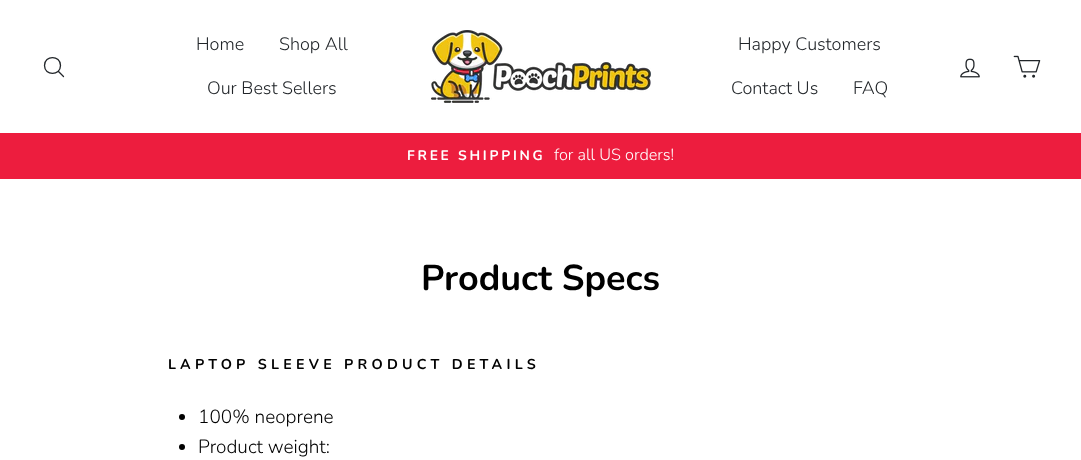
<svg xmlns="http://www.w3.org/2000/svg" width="1081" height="460">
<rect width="100%" height="100%" fill="#fff"/>
<path d="M60.5 65.5c0 10.5-16 10.5-16 0c0-10.5 16-10.5 16 0zm3 11l-5-5" fill="none" stroke="#212529" stroke-width="1.3" stroke-linecap="round" stroke-linejoin="round"/>
<text x="196" y="50" style="font-family:Nunito;font-size:18px;font-weight:300;fill:#212529">Home</text>
<text x="279" y="50" style="font-family:Nunito;font-size:18px;font-weight:300;fill:#212529">Shop All</text>
<text x="207" y="94" style="font-family:Nunito;font-size:18px;font-weight:300;fill:#212529">Our Best Sellers</text>
<image x="431" y="30" width="220" height="73" href="media/1.png"/>
<text x="738" y="50" style="font-family:Nunito;font-size:18px;font-weight:300;fill:#212529">Happy Customers</text>
<text x="731" y="94" style="font-family:Nunito;font-size:18px;font-weight:300;fill:#212529">Contact Us</text>
<text x="853" y="94" style="font-family:Nunito;font-size:18px;font-weight:300;fill:#212529">FAQ</text>
<image x="960" y="58" width="20" height="20" href="media/2.png"/>
<image x="1013" y="55" width="28" height="23" href="media/3.png"/>
<rect y="133" width="1081" height="46" fill="#ed1d3e"/>
<text x="407" y="160" style="font-family:Nunito;font-size:13.75px;font-weight:bold;letter-spacing:2.75px;fill:#fff">FREE SHIPPING</text>
<text x="554" y="160" style="font-family:Nunito;font-size:16.25px;font-weight:300;fill:#fff">for all US orders!</text>
<text x="421" y="290" style="font-family:Nunito;font-size:36px;font-weight:bold;fill:#000">Product Specs</text>
<text x="168" y="369" style="font-family:Nunito;font-size:14.25px;font-weight:bold;letter-spacing:4.25px;fill:#000">LAPTOP SLEEVE PRODUCT DETAILS</text>
<circle cx="182" cy="417" r="3" fill="#000"/>
<text x="198" y="423" style="font-family:Nunito;font-size:19px;font-weight:300;fill:#000">100% neoprene</text>
<circle cx="182" cy="447" r="3" fill="#000"/>
<text x="198" y="453" style="font-family:Nunito;font-size:19px;font-weight:300;fill:#000">Product weight:</text>
</svg>
